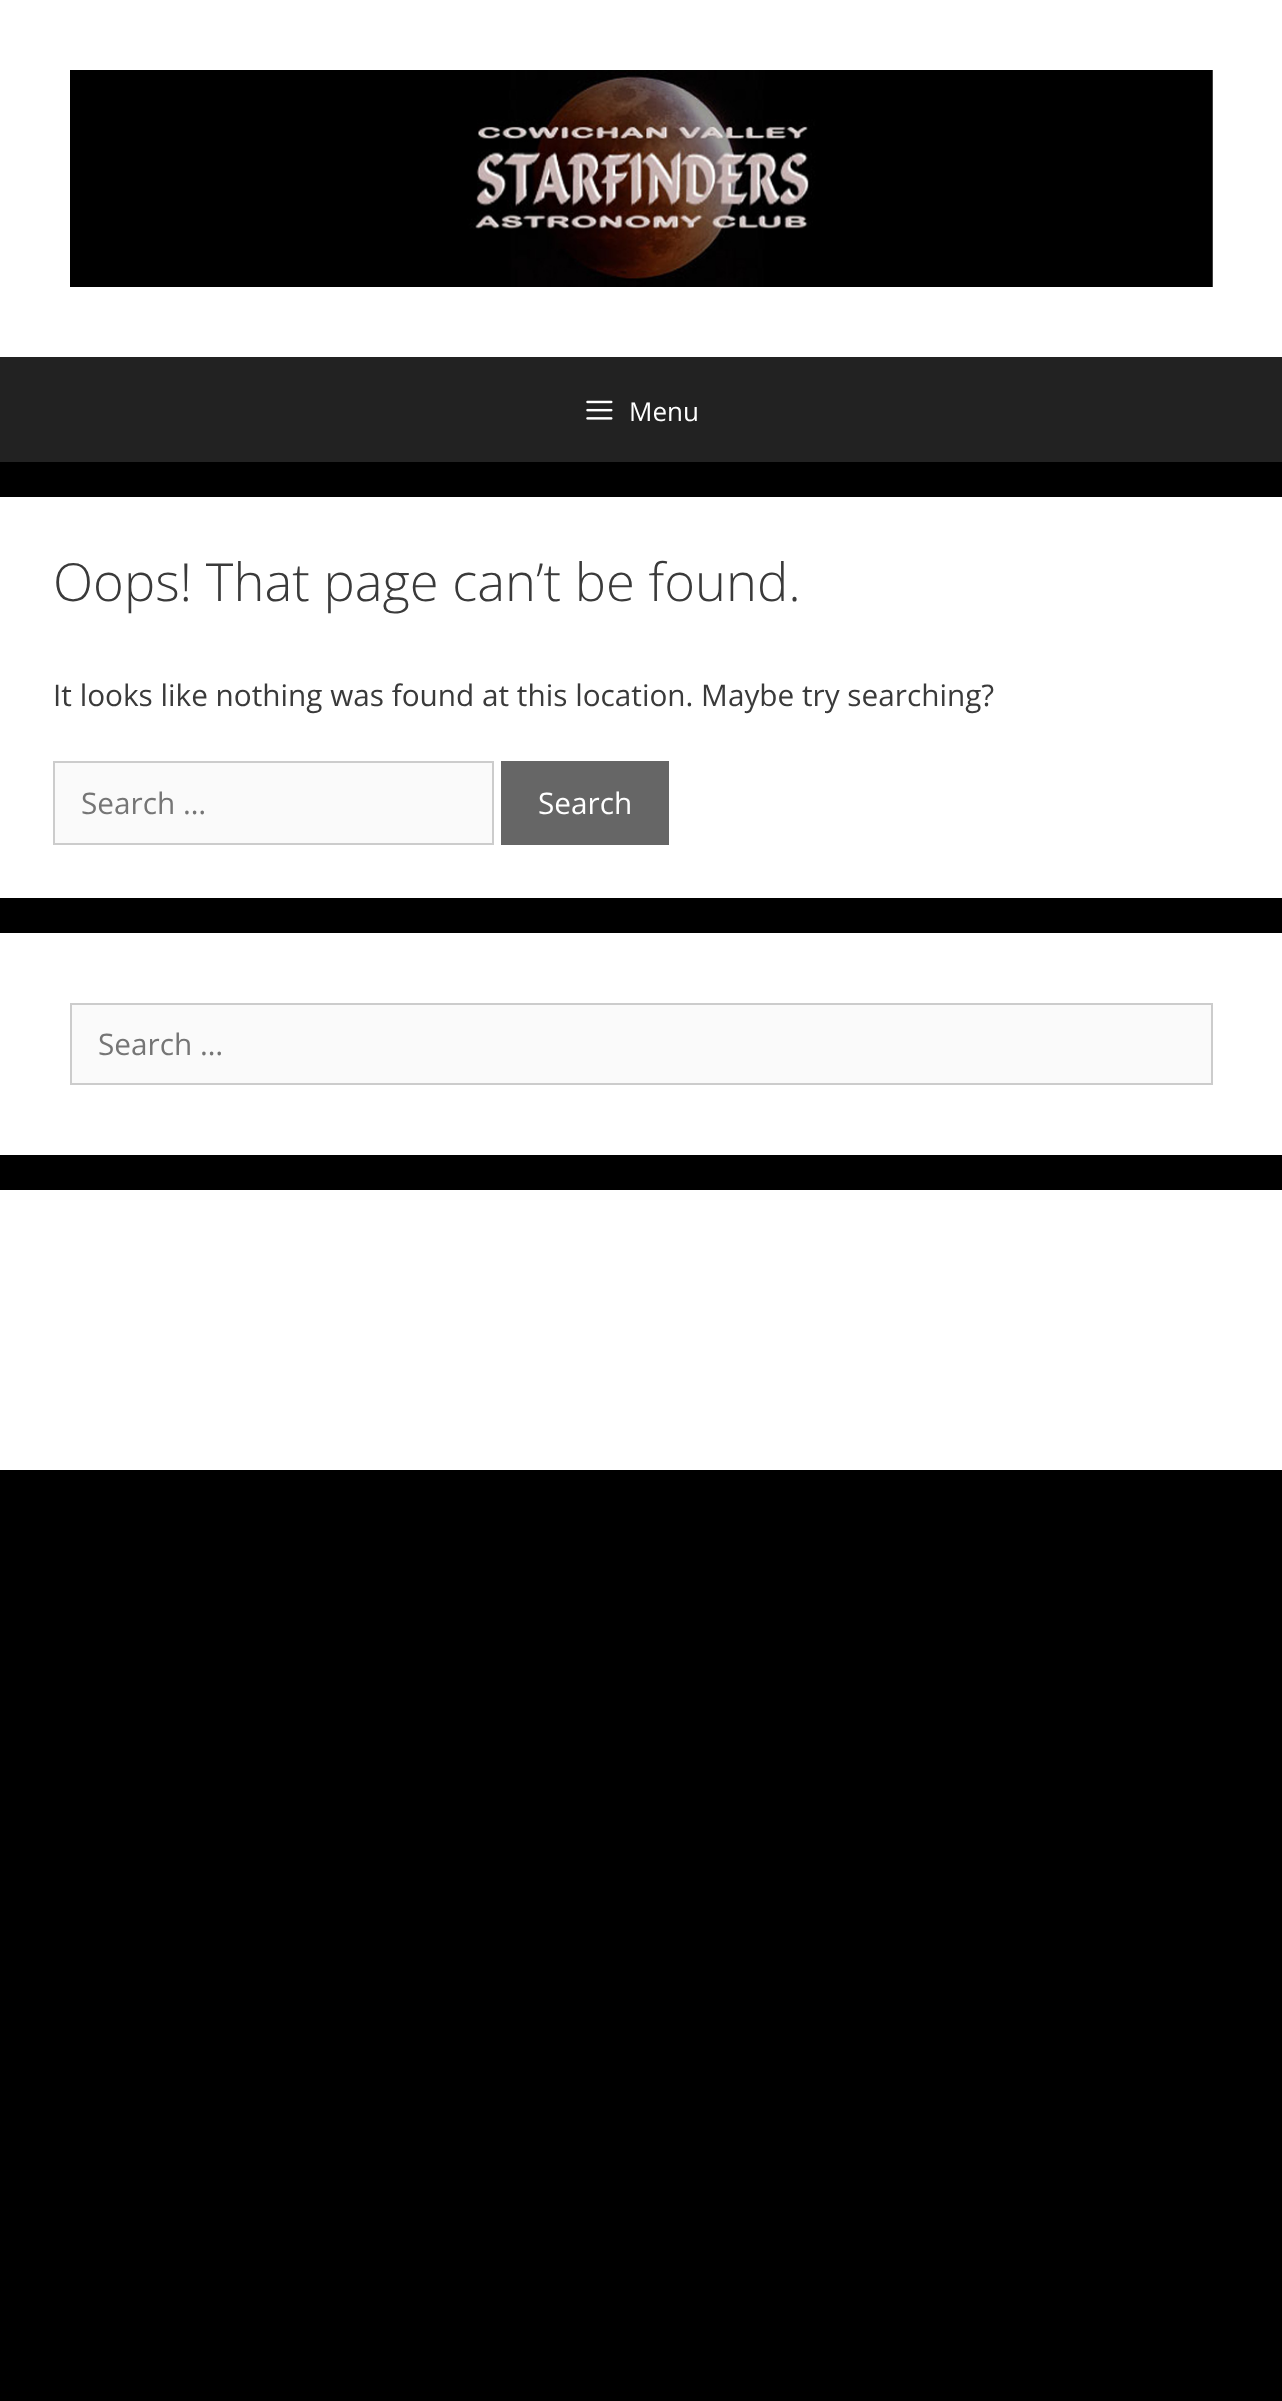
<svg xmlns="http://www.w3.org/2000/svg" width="1282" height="2401">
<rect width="100%" height="100%" fill="#000"/>
<rect width="1282" height="357" fill="#fff"/>
<image x="70" y="70" width="1143" height="217" href="media/1.png"/>
<rect y="357" width="1282" height="105" fill="#222"/>
<image x="586" y="400" width="27" height="20" href="media/2.png"/>
<text x="629" y="421" style="font-family:Open Sans;font-size:26px;fill:#fff">Menu</text>
<rect y="497" width="1282" height="401" fill="#fff"/>
<text x="53" y="601" style="font-family:Open Sans;font-size:52.5px;font-weight:300;fill:#3a3a3a">Oops! That page can’t be found.</text>
<text x="53" y="706" style="font-family:Open Sans;font-size:29.75px;fill:#3a3a3a">It looks like nothing was found at this location. Maybe try searching?</text>
<rect x="54" y="762" width="439" height="82" fill="#fafafa" stroke="#ccc" stroke-width="2"/>
<text x="81" y="814" style="font-family:Open Sans;font-size:29.75px;fill:#757575">Search …</text>
<rect x="501" y="761" width="168" height="84" fill="#666"/>
<text x="538" y="814" style="font-family:Open Sans;font-size:29.75px;fill:#fff">Search</text>
<rect y="933" width="1282" height="222" fill="#fff"/>
<rect x="71" y="1004" width="1141" height="80" fill="#fafafa" stroke="#ccc" stroke-width="2"/>
<text x="98" y="1055" style="font-family:Open Sans;font-size:29.75px;fill:#757575">Search …</text>
<rect y="1190" width="1282" height="280" fill="#fff"/>
</svg>
